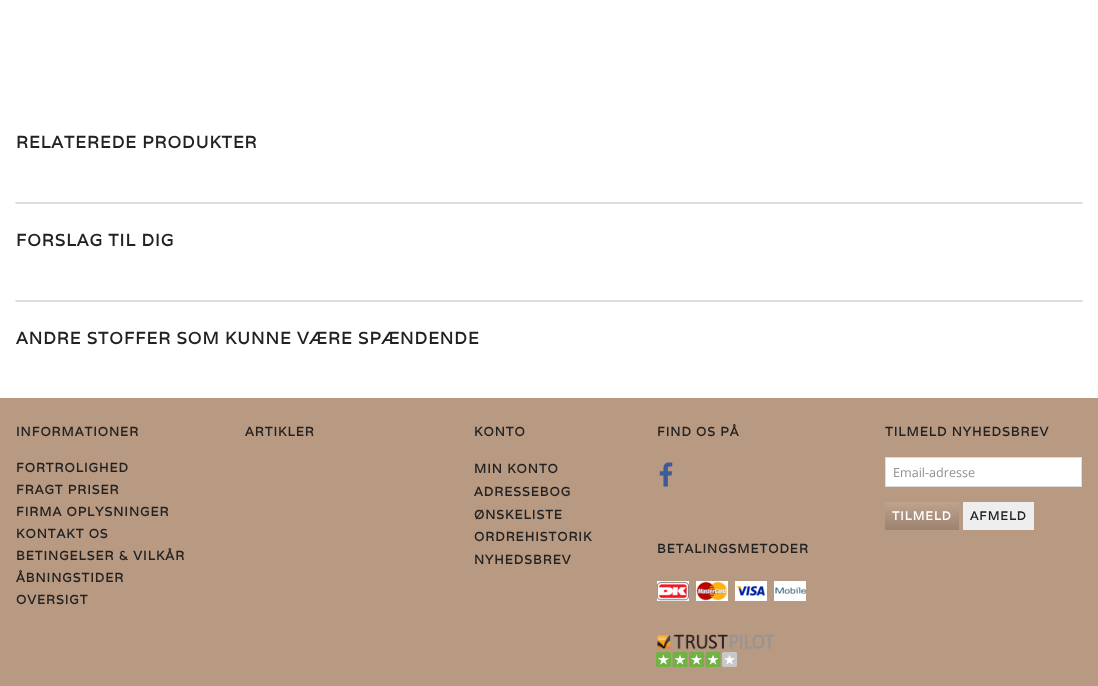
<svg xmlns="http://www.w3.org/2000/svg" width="1098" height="686">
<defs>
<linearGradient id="g1" gradientUnits="userSpaceOnUse" x1="922" y1="502" x2="922" y2="530"><stop offset="0" stop-color="#bfa38f"/><stop offset="1" stop-color="#9c826f"/></linearGradient>
</defs>
<rect width="100%" height="100%" fill="#b89982"/>
<rect width="1098" height="398" fill="#fff"/>
<text x="16" y="148" style="font-family:Varela;font-size:16.8px;font-weight:bold;letter-spacing:1px;fill:#222">RELATEREDE PRODUKTER</text>
<path d="M15 202h1068l-1 2h-1066z" fill="#ddd"/>
<text x="16" y="246" style="font-family:Varela;font-size:16.8px;font-weight:bold;letter-spacing:1px;fill:#222">FORSLAG TIL DIG</text>
<path d="M15 300h1068l-1 2h-1066z" fill="#ddd"/>
<text x="16" y="344" style="font-family:Varela;font-size:16.8px;font-weight:bold;letter-spacing:1px;fill:#222">ANDRE STOFFER SOM KUNNE VÆRE SPÆNDENDE</text>
<text x="16" y="436" style="font-family:Varela;font-size:12.6px;font-weight:bold;letter-spacing:1px;fill:#222">INFORMATIONER</text>
<text x="16" y="472" style="font-family:Varela;font-size:12.6px;font-weight:bold;letter-spacing:1px;fill:#222">FORTROLIGHED</text>
<text x="16" y="494" style="font-family:Varela;font-size:12.6px;font-weight:bold;letter-spacing:1px;fill:#222">FRAGT PRISER</text>
<text x="16" y="516" style="font-family:Varela;font-size:12.6px;font-weight:bold;letter-spacing:1px;fill:#222">FIRMA OPLYSNINGER</text>
<text x="16" y="538" style="font-family:Varela;font-size:12.6px;font-weight:bold;letter-spacing:1px;fill:#222">KONTAKT OS</text>
<text x="16" y="560" style="font-family:Varela;font-size:12.6px;font-weight:bold;letter-spacing:1px;fill:#222">BETINGELSER &amp; VILKÅR</text>
<text x="16" y="582" style="font-family:Varela;font-size:12.6px;font-weight:bold;letter-spacing:1px;fill:#222">ÅBNINGSTIDER</text>
<text x="16" y="604" style="font-family:Varela;font-size:12.6px;font-weight:bold;letter-spacing:1px;fill:#222">OVERSIGT</text>
<text x="245" y="436" style="font-family:Varela;font-size:12.6px;font-weight:bold;letter-spacing:1px;fill:#222">ARTIKLER</text>
<text x="474" y="436" style="font-family:Varela;font-size:12.6px;font-weight:bold;letter-spacing:1px;fill:#222">KONTO</text>
<text x="474" y="473" style="font-family:Varela;font-size:12.6px;font-weight:bold;letter-spacing:1px;fill:#222">MIN KONTO</text>
<text x="474" y="496" style="font-family:Varela;font-size:12.6px;font-weight:bold;letter-spacing:1px;fill:#222">ADRESSEBOG</text>
<text x="474" y="519" style="font-family:Varela;font-size:12.6px;font-weight:bold;letter-spacing:1px;fill:#222">ØNSKELISTE</text>
<text x="474" y="541" style="font-family:Varela;font-size:12.6px;font-weight:bold;letter-spacing:1px;fill:#222">ORDREHISTORIK</text>
<text x="474" y="564" style="font-family:Varela;font-size:12.6px;font-weight:bold;letter-spacing:1px;fill:#222">NYHEDSBREV</text>
<text x="657" y="436" style="font-family:Varela;font-size:12.6px;font-weight:bold;letter-spacing:1px;fill:#222">FIND OS PÅ</text>
<image x="659" y="462" width="14" height="25" href="media/1.png"/>
<text x="657" y="553" style="font-family:Varela;font-size:12.6px;font-weight:bold;letter-spacing:1px;fill:#222">BETALINGSMETODER</text>
<image x="657" y="581" width="32" height="20" href="media/2.png"/>
<image x="696" y="581" width="32" height="20" href="media/3.png"/>
<image x="735" y="581" width="32" height="20" href="media/4.png"/>
<image x="774" y="581" width="32" height="20" href="media/5.png"/>
<image x="657" y="634" width="118" height="16" href="media/6.png"/>
<image x="656" y="652" width="81" height="15" href="media/7.png"/>
<text x="885" y="436" style="font-family:Varela;font-size:12.6px;font-weight:bold;letter-spacing:1px;fill:#222">TILMELD NYHEDSBREV</text>
<rect x="885.5" y="457.5" width="196" height="29" fill="#fff" stroke="#ddd"/>
<text x="893" y="477" style="font-family:Open Sans;font-size:12.6px;fill:#919191">Email-adresse</text>
<rect x="885" y="502" width="74" height="28" fill="url(#g1)"/>
<text x="892" y="520" style="font-family:Varela;font-size:12px;font-weight:bold;letter-spacing:1px;fill:#fff">TILMELD</text>
<rect x="963" y="502" width="71" height="28" fill="#eee"/>
<text x="970" y="520" style="font-family:Varela;font-size:12px;font-weight:bold;letter-spacing:1px;fill:#222">AFMELD</text>
</svg>
